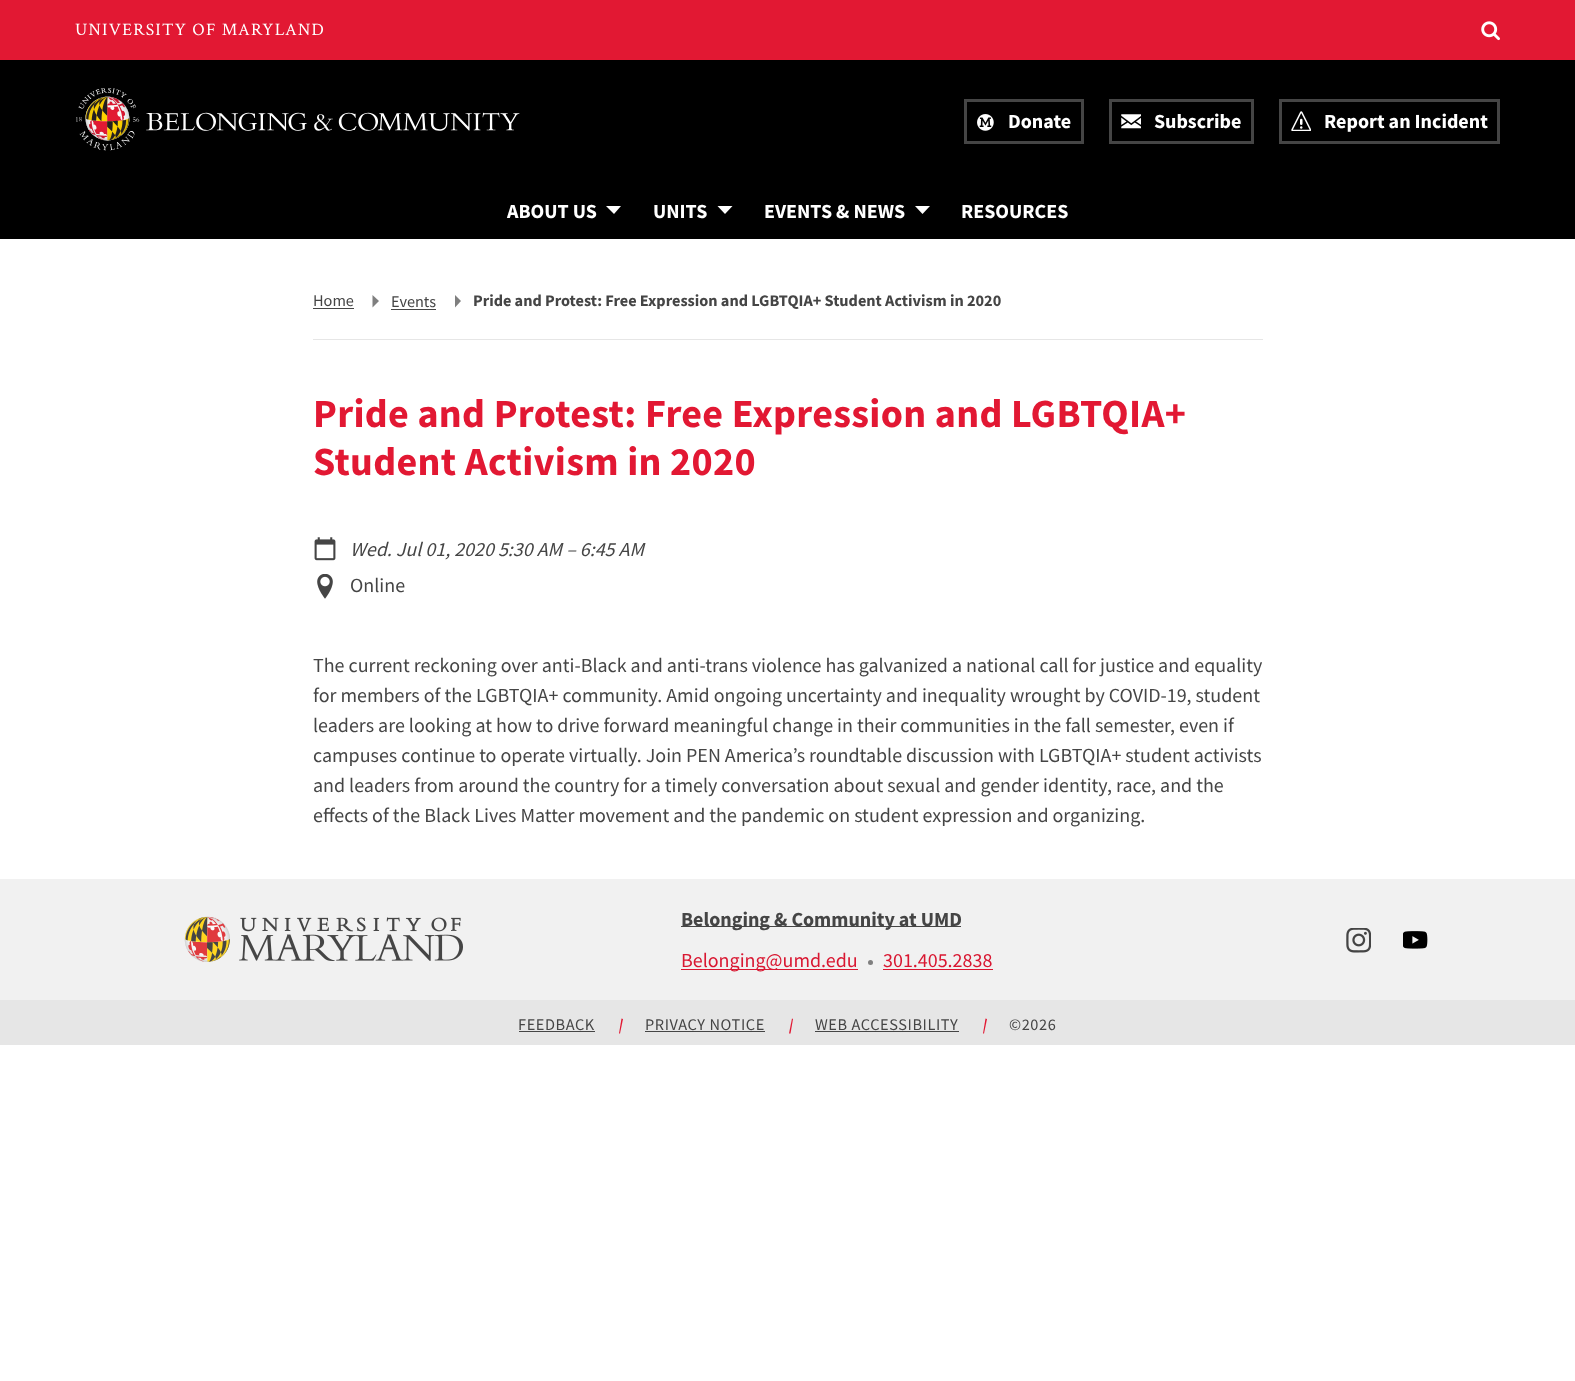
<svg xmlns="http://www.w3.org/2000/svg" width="1575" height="1381">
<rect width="100%" height="100%" fill="#fff"/>
<rect width="1575" height="60" fill="#e21833"/>
<text x="75" y="35" style="font-family:Crimson Text;font-size:17.5px;letter-spacing:1.25px;fill:#fff">UNIVERSITY OF MARYLAND</text>
<image x="1481" y="21" width="19" height="20" href="media/1.png"/>
<rect y="60" width="1575" height="179" fill="#000"/>
<image x="76" y="88" width="444" height="63" href="media/2.png"/>
<rect x="965.5" y="100.5" width="117" height="42" fill="none" stroke="#454545" stroke-width="3"/>
<image x="977" y="114" width="17" height="17" href="media/3.png"/>
<text x="1008" y="128" style="font-family:Source Sans Pro;font-size:20px;font-weight:bold;fill:#fff">Donate</text>
<rect x="1110.5" y="100.5" width="142" height="42" fill="none" stroke="#454545" stroke-width="3"/>
<image x="1121" y="114" width="20" height="15" href="media/4.png"/>
<text x="1154" y="128" style="font-family:Source Sans Pro;font-size:20px;font-weight:bold;fill:#fff">Subscribe</text>
<rect x="1280.5" y="100.5" width="218" height="42" fill="none" stroke="#454545" stroke-width="3"/>
<image x="1291" y="111" width="20" height="20" href="media/5.png"/>
<text x="1324" y="128" style="font-family:Source Sans Pro;font-size:20px;font-weight:bold;fill:#fff">Report an Incident</text>
<text x="507" y="218" style="font-family:Source Sans Pro;font-size:20px;font-weight:bold;fill:#fff">ABOUT US</text>
<path d="M606 206h15l-7 8z" fill="#fff"/>
<text x="653" y="218" style="font-family:Source Sans Pro;font-size:20px;font-weight:bold;fill:#fff">UNITS</text>
<path d="M717.5 206h15l-7.5 8z" fill="#fff"/>
<text x="764" y="218" style="font-family:Source Sans Pro;font-size:20px;font-weight:bold;fill:#fff">EVENTS &amp; NEWS</text>
<path d="M915 206h15l-7.5 8z" fill="#fff"/>
<text x="961" y="218" style="font-family:Source Sans Pro;font-size:20px;font-weight:bold;fill:#fff">RESOURCES</text>
<rect x="313" y="339" width="950" height="1" fill="#e6e6e6"/>
<text x="313" y="306" style="font-family:Source Sans Pro;font-size:16.25px;fill:#454545">Home</text>
<rect x="313" y="308" width="41" height="1" fill="#454545"/>
<path d="M372.5 307.5v-12.5l6.5 6z" fill="#7f7f7f"/>
<text x="391" y="307" style="font-family:Source Sans Pro;font-size:16.25px;fill:#454545">Events</text>
<rect x="391" y="309" width="45" height="1" fill="#454545"/>
<path d="M455 307.5v-12.5l6 6z" fill="#7f7f7f"/>
<text x="473" y="306" style="font-family:Source Sans Pro;font-size:16.25px;font-weight:bold;fill:#454545">Pride and Protest: Free Expression and LGBTQIA+ Student Activism in 2020</text>
<text x="313" y="427" style="font-family:Source Sans Pro;font-size:40.1px;font-weight:bold;letter-spacing:0.3px;fill:#e21833">Pride and Protest: Free Expression and LGBTQIA+</text>
<text x="313" y="475" style="font-family:Source Sans Pro;font-size:40.1px;font-weight:bold;letter-spacing:0.3px;fill:#e21833">Student Activism in 2020</text>
<image x="314" y="537" width="22" height="24" href="media/6.png"/>
<text x="350" y="556" style="font-family:Source Sans Pro;font-size:20px;font-style:italic;fill:#454545">Wed. Jul 01, 2020 5:30 AM – 6:45 AM</text>
<image x="317" y="574" width="16" height="25" href="media/7.png"/>
<text x="350" y="592" style="font-family:Source Sans Pro;font-size:20px;fill:#454545">Online</text>
<text x="313" y="672" style="font-family:Source Sans Pro;font-size:20px;fill:#454545">The current reckoning over anti-Black and anti-trans violence has galvanized a national call for justice and equality</text>
<text x="313" y="702" style="font-family:Source Sans Pro;font-size:20px;fill:#454545">for members of the LGBTQIA+ community. Amid ongoing uncertainty and inequality wrought by COVID-19, student</text>
<text x="313" y="732" style="font-family:Source Sans Pro;font-size:20px;fill:#454545">leaders are looking at how to drive forward meaningful change in their communities in the fall semester, even if</text>
<text x="313" y="762" style="font-family:Source Sans Pro;font-size:20px;fill:#454545">campuses continue to operate virtually. Join PEN America’s roundtable discussion with LGBTQIA+ student activists</text>
<text x="313" y="792" style="font-family:Source Sans Pro;font-size:20px;fill:#454545">and leaders from around the country for a timely conversation about sexual and gender identity, race, and the</text>
<text x="313" y="822" style="font-family:Source Sans Pro;font-size:20px;fill:#454545">effects of the Black Lives Matter movement and the pandemic on student expression and organizing.</text>
<rect y="879" width="1575" height="121" fill="#f1f1f1"/>
<image x="184" y="916" width="279" height="46" href="media/8.png"/>
<rect x="681" y="926" width="280" height="1" fill="#454545"/>
<text x="681" y="926" style="font-family:Source Sans Pro;font-size:20px;font-weight:bold;fill:#454545">Belonging &amp; Community at UMD</text>
<rect x="681" y="969" width="177" height="1" fill="#d91731"/>
<text x="681" y="967" style="font-family:Source Sans Pro;font-size:20px;fill:#d91731">Belonging@umd.edu</text>
<circle cx="870.5" cy="962.5" r="2.5" fill="#7f7f7f"/>
<text x="883" y="967" style="font-family:Source Sans Pro;font-size:20px;fill:#d91731">301.405.2838</text>
<rect x="883" y="969" width="110" height="1" fill="#d91731"/>
<image x="1346" y="928" width="25" height="25" href="media/9.png"/>
<image x="1403" y="931" width="25" height="18" href="media/10.png"/>
<rect y="1000" width="1575" height="45" fill="#e6e6e6"/>
<text x="518" y="1030" style="font-family:Source Sans Pro;font-size:16.25px;letter-spacing:0.6px;fill:#454545">FEEDBACK</text>
<rect x="519" y="1031" width="76" height="1" fill="#454545"/>
<path d="M621.5 1018.5l1.5 .5l-3 14.5h-1z" fill="#e21833"/>
<text x="645" y="1030" style="font-family:Source Sans Pro;font-size:16.25px;letter-spacing:0.6px;fill:#454545">PRIVACY NOTICE</text>
<rect x="645" y="1031" width="120" height="1" fill="#454545"/>
<path d="M792 1018.5l1 .5l-2.5 14.5h-1.5z" fill="#e21833"/>
<text x="815" y="1030" style="font-family:Source Sans Pro;font-size:16.25px;letter-spacing:0.6px;fill:#454545">WEB ACCESSIBILITY</text>
<rect x="815" y="1031" width="144" height="1" fill="#454545"/>
<path d="M985.5 1018.5l1.5 .5l-3 14.5h-1z" fill="#e21833"/>
<text x="1009" y="1030" style="font-family:Source Sans Pro;font-size:16.25px;letter-spacing:0.6px;fill:#454545">©2026</text>
</svg>
